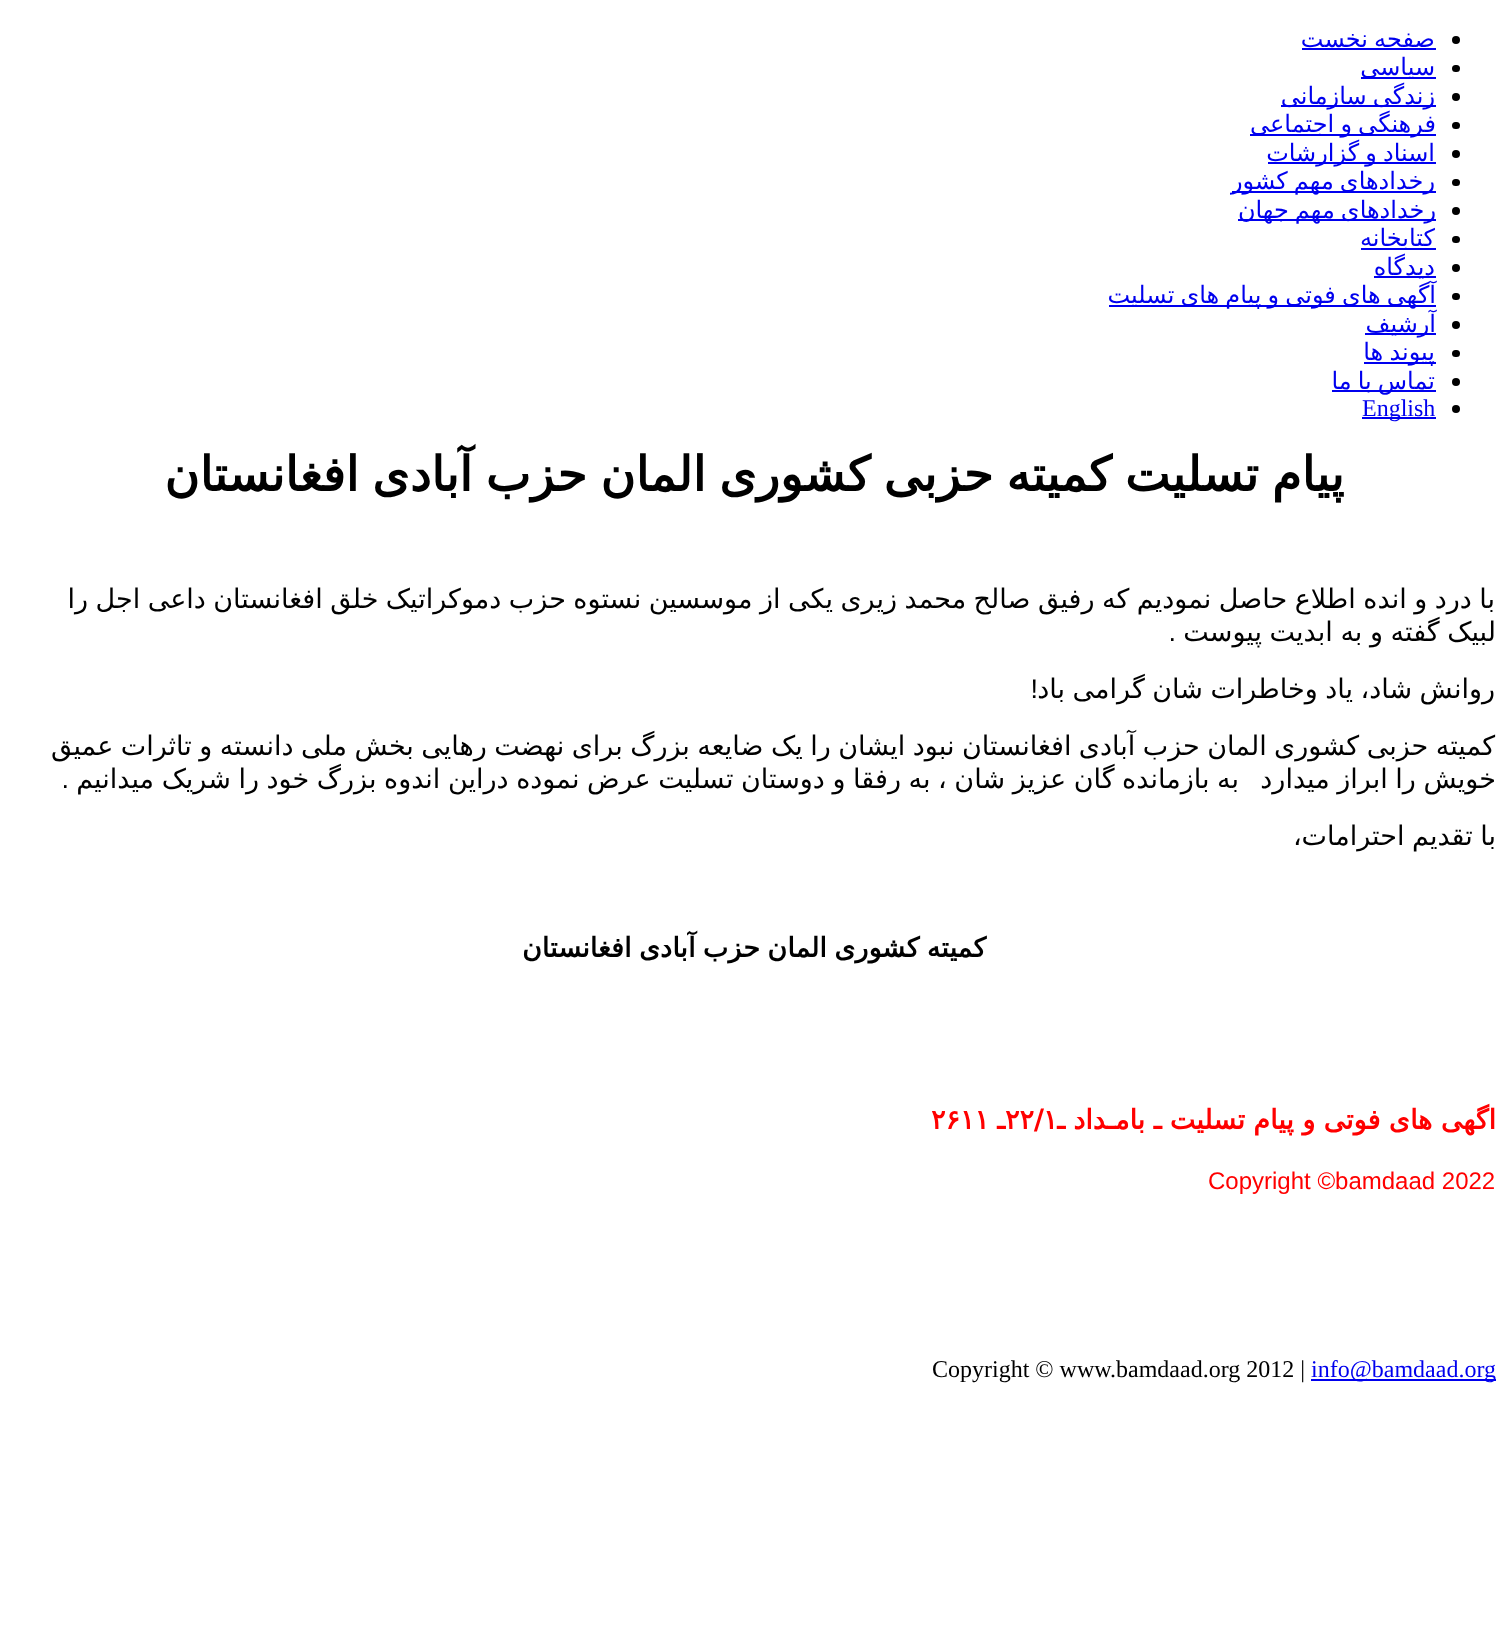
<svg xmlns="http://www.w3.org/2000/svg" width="1507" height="1628">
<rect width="100%" height="100%" fill="#fff"/>
<circle cx="1456" cy="40" r="4" fill="#000"/>
<text x="1435" y="47" word-spacing="-1.5" style="font-family:DejaVu Sans;font-size:24px;direction:rtl;fill:#00e">صفحه نخست</text>
<rect x="1302" y="48" width="134" height="2" fill="#00e"/>
<rect x="1452" y="65" width="8" height="7" rx="3.5" fill="#000"/>
<rect x="1361" y="77" width="75" height="2" fill="#00e"/>
<text x="1435" y="75" style="font-family:DejaVu Sans;font-size:24px;direction:rtl;fill:#00e">سیاسی</text>
<circle cx="1456" cy="97" r="4" fill="#000"/>
<rect x="1281" y="105" width="155" height="2" fill="#00e"/>
<text x="1435" y="104" word-spacing="-1.5" style="font-family:DejaVu Sans;font-size:24px;direction:rtl;fill:#00e">زندگی سازمانی</text>
<rect x="1452" y="122" width="8" height="7" rx="3.5" fill="#000"/>
<rect x="1250" y="134" width="186" height="2" fill="#00e"/>
<text x="1436" y="132" word-spacing="-1.5" style="font-family:DejaVu Sans;font-size:24px;direction:rtl;fill:#00e">فرهنگی و اجتماعی</text>
<circle cx="1456" cy="154" r="4" fill="#000"/>
<rect x="1268" y="162" width="168" height="2" fill="#00e"/>
<text x="1435" y="161" word-spacing="-1.5" style="font-family:DejaVu Sans;font-size:24px;direction:rtl;fill:#00e">اسناد و گزارشات</text>
<rect x="1452" y="179" width="8" height="7" rx="3.5" fill="#000"/>
<rect x="1232" y="191" width="204" height="2" fill="#00e"/>
<text x="1435" y="189" word-spacing="-1.5" style="font-family:DejaVu Sans;font-size:24px;direction:rtl;fill:#00e">رخدادهای مهم کشور</text>
<circle cx="1456" cy="211" r="4" fill="#000"/>
<rect x="1238" y="219" width="198" height="2" fill="#00e"/>
<text x="1436" y="218" word-spacing="-1.5" style="font-family:DejaVu Sans;font-size:24px;direction:rtl;fill:#00e">رخدادهای مهم جهان</text>
<rect x="1452" y="236" width="8" height="7" rx="3.5" fill="#000"/>
<rect x="1361" y="248" width="75" height="2" fill="#00e"/>
<text x="1435" y="246" style="font-family:DejaVu Sans;font-size:24px;direction:rtl;fill:#00e">کتابخانه</text>
<circle cx="1456" cy="268" r="4" fill="#000"/>
<rect x="1374" y="276" width="62" height="2" fill="#00e"/>
<text x="1435" y="275" style="font-family:DejaVu Sans;font-size:24px;direction:rtl;fill:#00e">دیدگاه</text>
<rect x="1452" y="293" width="8" height="7" rx="3.5" fill="#000"/>
<rect x="1109" y="305" width="327" height="2" fill="#00e"/>
<text x="1436" y="303" word-spacing="-1.5" style="font-family:DejaVu Sans;font-size:24px;direction:rtl;fill:#00e">آگهی های فوتی و پیام های تسلیت</text>
<circle cx="1456" cy="325" r="4" fill="#000"/>
<rect x="1365" y="333" width="71" height="2" fill="#00e"/>
<text x="1436" y="332" style="font-family:DejaVu Sans;font-size:24px;direction:rtl;fill:#00e">آرشیف</text>
<rect x="1452" y="350" width="8" height="7" rx="3.5" fill="#000"/>
<rect x="1364" y="362" width="72" height="2" fill="#00e"/>
<text x="1435" y="360" word-spacing="-1.5" style="font-family:DejaVu Sans;font-size:24px;direction:rtl;fill:#00e">پیوند ها</text>
<circle cx="1456" cy="382" r="4" fill="#000"/>
<rect x="1332" y="390" width="104" height="2" fill="#00e"/>
<text x="1435" y="389" word-spacing="-1.5" style="font-family:DejaVu Sans;font-size:24px;direction:rtl;fill:#00e">تماس با ما</text>
<circle cx="1456" cy="409" r="4" fill="#000"/>
<rect x="1362" y="417" width="74" height="2" fill="#00e"/>
<text x="1362" y="416" style="font-family:Liberation Serif;font-size:24px;fill:#00e">English</text>
<text x="1344" y="491" word-spacing="-2" style="font-family:DejaVu Sans;font-size:48px;font-weight:bold;direction:rtl;fill:#000">پیام تسلیت کمیته حزبی کشوری المان حزب آبادی افغانستان</text>
<text x="1495" y="608" word-spacing="-1.1" style="font-family:DejaVu Sans;font-size:27px;direction:rtl;fill:#000">با درد و انده اطلاع حاصل نمودیم كه رفیق صالح محمد زیری یكی از موسسین نستوه حزب دموکراتیک خلق افغانستان داعی اجل را</text>
<text x="1496" y="641" word-spacing="-1" style="font-family:DejaVu Sans;font-size:27px;direction:rtl;fill:#000">لبیک گفته و به ابدیت پیوست</text>
<text x="1176" y="641" style="font-family:Liberation Sans;font-size:27px;direction:rtl;fill:#000">.</text>
<text x="1495" y="698" word-spacing="-1.1" style="font-family:DejaVu Sans;font-size:27px;direction:rtl;fill:#000">روانش شاد، یاد وخاطرات شان گرامی باد</text>
<text x="1038" y="698" style="font-family:Liberation Sans;font-size:27px;direction:rtl;fill:#000">!</text>
<text x="1495" y="755" word-spacing="-1.1" style="font-family:DejaVu Sans;font-size:27px;direction:rtl;fill:#000">کمیته حزبی کشوری المان حزب آبادی افغانستان نبود ایشان را یک ضایعه بزرگ برای نهضت رهایی بخش ملی دانسته و تاثرات عمیق</text>
<text x="1496" y="788" word-spacing="-1" style="font-family:DejaVu Sans;font-size:27px;direction:rtl;fill:#000">خویش را ابراز میدارد</text>
<text x="1239" y="788" word-spacing="-1" style="font-family:DejaVu Sans;font-size:27px;direction:rtl;fill:#000">به بازمانده گان عزیز شان ، به رفقا و دوستان تسلیت عرض نموده دراین اندوه بزرگ خود را شریک میدانیم</text>
<text x="69" y="788" style="font-family:Liberation Sans;font-size:27px;direction:rtl;fill:#000">.</text>
<text x="1496" y="845" word-spacing="-1.1" style="font-family:DejaVu Sans;font-size:27px;direction:rtl;fill:#000">با تقدیم احترامات،</text>
<text x="986" y="957" word-spacing="-1.1" style="font-family:DejaVu Sans;font-size:27px;font-weight:bold;direction:rtl;fill:#000">کمیته کشوری المان حزب آبادی افغانستان</text>
<text x="1496" y="1129" word-spacing="-0.25" style="font-family:DejaVu Sans;font-size:27px;font-weight:bold;direction:rtl;fill:#f00">اگهی های فوتی و پیام تسلیت ـ بامـداد ـ</text>
<text x="1005" y="1129" style="font-family:DejaVu Sans;font-size:27px;font-weight:bold;fill:#f00">۲۲/۱</text>
<text x="1005" y="1129" style="font-family:DejaVu Sans;font-size:27px;font-weight:bold;direction:rtl;fill:#f00">ـ</text>
<text x="931" y="1129" style="font-family:DejaVu Sans;font-size:27px;font-weight:bold;fill:#f00">۲۶۱۱</text>
<text x="1208" y="1189" style="font-family:Liberation Sans;font-size:24px;fill:#f00">Copyright ©bamdaad 2022</text>
<rect x="1311" y="1379" width="185" height="2" fill="#00e"/>
<text x="1311" y="1377" style="font-family:Liberation Serif;font-size:24px;fill:#00e">info@bamdaad.org</text>
<text x="932" y="1377" style="font-family:Liberation Serif;font-size:24px;fill:#000">Copyright © www.bamdaad.org 2012 |</text>
</svg>
